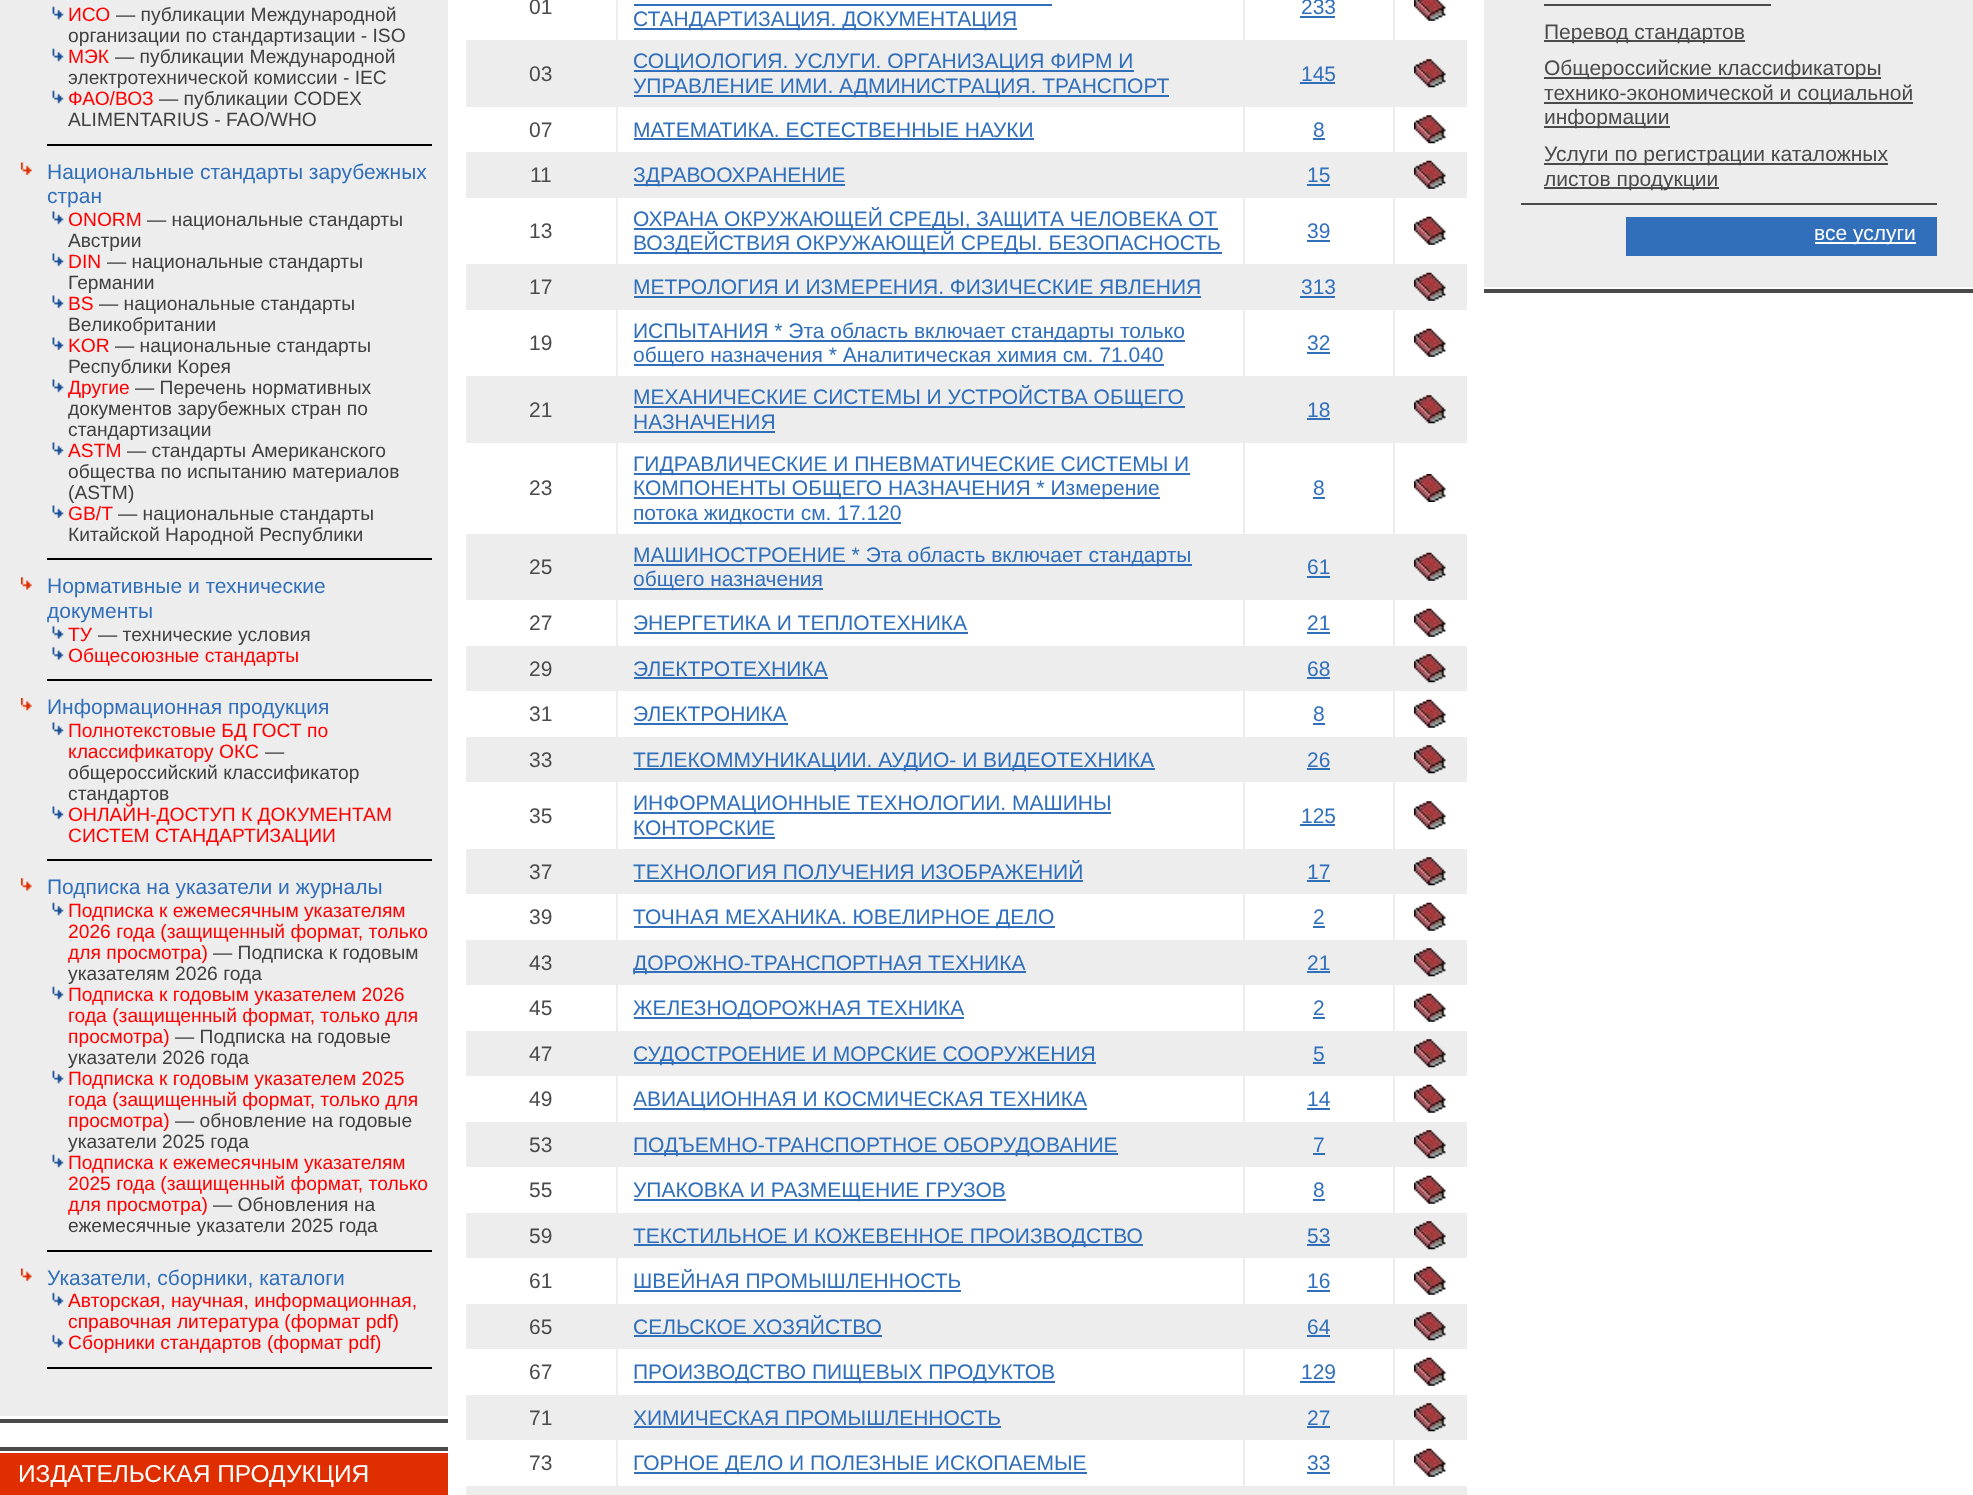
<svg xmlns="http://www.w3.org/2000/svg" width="1973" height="1495">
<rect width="100%" height="100%" fill="#fff"/>
<rect width="448" height="1416" fill="#ededed"/>
<image x="52" y="6" width="12" height="14" href="media/1.png"/>
<text x="68" y="21" style="font-family:Liberation Sans;font-size:19.25px;fill:#f00">ИСО</text>
<text x="116" y="21" style="font-family:Liberation Sans;font-size:19.25px;fill:#404040">— публикации Международной</text>
<text x="68" y="42" style="font-family:Liberation Sans;font-size:19.25px;fill:#404040">организации по стандартизации - ISO</text>
<image x="52" y="48" width="12" height="14" href="media/1.png"/>
<text x="68" y="63" style="font-family:Liberation Sans;font-size:19.25px;fill:#f00">МЭК</text>
<text x="115" y="63" style="font-family:Liberation Sans;font-size:19.25px;fill:#404040">— публикации Международной</text>
<text x="68" y="84" style="font-family:Liberation Sans;font-size:19.25px;fill:#404040">электротехнической комиссии - IEC</text>
<image x="52" y="90" width="12" height="14" href="media/1.png"/>
<text x="68" y="105" style="font-family:Liberation Sans;font-size:19.25px;fill:#f00">ФАО/ВОЗ</text>
<text x="159" y="105" style="font-family:Liberation Sans;font-size:19.25px;fill:#404040">— публикации CODEX</text>
<text x="68" y="126" style="font-family:Liberation Sans;font-size:19.25px;fill:#404040">ALIMENTARIUS - FAO/WHО</text>
<rect x="47" y="144" width="385" height="2" fill="#000"/>
<image x="21" y="162" width="11" height="13" href="media/2.png"/>
<text x="47" y="179" style="font-family:Liberation Sans;font-size:21px;fill:#316fbb">Национальные стандарты зарубежных</text>
<text x="47" y="203" style="font-family:Liberation Sans;font-size:21px;fill:#316fbb">стран</text>
<image x="52" y="211" width="12" height="14" href="media/3.png"/>
<text x="68" y="226" style="font-family:Liberation Sans;font-size:19.25px;fill:#f00">ONORM</text>
<text x="147" y="226" style="font-family:Liberation Sans;font-size:19.25px;fill:#404040">— национальные стандарты</text>
<text x="68" y="247" style="font-family:Liberation Sans;font-size:19.25px;fill:#404040">Австрии</text>
<image x="52" y="253" width="12" height="14" href="media/3.png"/>
<text x="68" y="268" style="font-family:Liberation Sans;font-size:19.25px;fill:#f00">DIN</text>
<text x="107" y="268" style="font-family:Liberation Sans;font-size:19.25px;fill:#404040">— национальные стандарты</text>
<text x="68" y="289" style="font-family:Liberation Sans;font-size:19.25px;fill:#404040">Германии</text>
<image x="52" y="295" width="12" height="14" href="media/3.png"/>
<text x="68" y="310" style="font-family:Liberation Sans;font-size:19.25px;fill:#f00">BS</text>
<text x="99" y="310" style="font-family:Liberation Sans;font-size:19.25px;fill:#404040">— национальные стандарты</text>
<text x="68" y="331" style="font-family:Liberation Sans;font-size:19.25px;fill:#404040">Великобритании</text>
<image x="52" y="337" width="12" height="14" href="media/3.png"/>
<text x="68" y="352" style="font-family:Liberation Sans;font-size:19.25px;fill:#f00">KOR</text>
<text x="115" y="352" style="font-family:Liberation Sans;font-size:19.25px;fill:#404040">— национальные стандарты</text>
<text x="68" y="373" style="font-family:Liberation Sans;font-size:19.25px;fill:#404040">Республики Корея</text>
<image x="52" y="379" width="12" height="14" href="media/3.png"/>
<text x="68" y="394" style="font-family:Liberation Sans;font-size:19.25px;fill:#f00">Другие</text>
<text x="135" y="394" style="font-family:Liberation Sans;font-size:19.25px;fill:#404040">— Перечень нормативных</text>
<text x="68" y="415" style="font-family:Liberation Sans;font-size:19.25px;fill:#404040">документов зарубежных стран по</text>
<text x="68" y="436" style="font-family:Liberation Sans;font-size:19.25px;fill:#404040">стандартизации</text>
<image x="52" y="442" width="12" height="14" href="media/3.png"/>
<text x="68" y="457" style="font-family:Liberation Sans;font-size:19.25px;fill:#f00">ASTM</text>
<text x="127" y="457" style="font-family:Liberation Sans;font-size:19.25px;fill:#404040">— стандарты Американского</text>
<text x="68" y="478" style="font-family:Liberation Sans;font-size:19.25px;fill:#404040">общества по испытанию материалов</text>
<text x="68" y="499" style="font-family:Liberation Sans;font-size:19.25px;fill:#404040">(ASTM)</text>
<image x="52" y="505" width="12" height="14" href="media/3.png"/>
<text x="68" y="520" style="font-family:Liberation Sans;font-size:19.25px;fill:#f00">GB/T</text>
<text x="118" y="520" style="font-family:Liberation Sans;font-size:19.25px;fill:#404040">— национальные стандарты</text>
<text x="68" y="541" style="font-family:Liberation Sans;font-size:19.25px;fill:#404040">Китайской Народной Республики</text>
<rect x="47" y="558" width="385" height="2" fill="#000"/>
<image x="21" y="577" width="11" height="13" href="media/4.png"/>
<text x="47" y="593" style="font-family:Liberation Sans;font-size:21px;fill:#316fbb">Нормативные и технические</text>
<text x="47" y="618" style="font-family:Liberation Sans;font-size:21px;fill:#316fbb">документы</text>
<image x="52" y="625" width="12" height="14" href="media/5.png"/>
<text x="68" y="641" style="font-family:Liberation Sans;font-size:19.25px;fill:#f00">ТУ</text>
<text x="98" y="641" style="font-family:Liberation Sans;font-size:19.25px;fill:#404040">— технические условия</text>
<image x="52" y="646" width="12" height="14" href="media/5.png"/>
<text x="68" y="662" style="font-family:Liberation Sans;font-size:19.25px;fill:#f00">Общесоюзные стандарты</text>
<rect x="47" y="679" width="385" height="2" fill="#000"/>
<image x="21" y="698" width="11" height="13" href="media/6.png"/>
<text x="47" y="714" style="font-family:Liberation Sans;font-size:21px;fill:#316fbb">Информационная продукция</text>
<image x="52" y="722" width="12" height="14" href="media/3.png"/>
<text x="68" y="737" style="font-family:Liberation Sans;font-size:19.25px;fill:#f00">Полнотекстовые БД ГОСТ по</text>
<text x="68" y="758" style="font-family:Liberation Sans;font-size:19.25px;fill:#f00">классификатору ОКС</text>
<text x="265" y="758" style="font-family:Liberation Sans;font-size:19.25px;fill:#404040">—</text>
<text x="68" y="779" style="font-family:Liberation Sans;font-size:19.25px;fill:#404040">общероссийский классификатор</text>
<text x="68" y="800" style="font-family:Liberation Sans;font-size:19.25px;fill:#404040">стандартов</text>
<image x="52" y="806" width="12" height="14" href="media/3.png"/>
<text x="68" y="821" style="font-family:Liberation Sans;font-size:19.25px;fill:#f00">ОНЛАЙН-ДОСТУП К ДОКУМЕНТАМ</text>
<text x="68" y="842" style="font-family:Liberation Sans;font-size:19.25px;fill:#f00">СИСТЕМ СТАНДАРТИЗАЦИИ</text>
<rect x="47" y="859" width="385" height="2" fill="#000"/>
<image x="21" y="878" width="11" height="13" href="media/7.png"/>
<text x="47" y="894" style="font-family:Liberation Sans;font-size:21px;fill:#316fbb">Подписка на указатели и журналы</text>
<image x="52" y="902" width="12" height="14" href="media/1.png"/>
<text x="68" y="917" style="font-family:Liberation Sans;font-size:19.25px;fill:#f00">Подписка к ежемесячным указателям</text>
<text x="68" y="938" style="font-family:Liberation Sans;font-size:19.25px;fill:#f00">2026 года (защищенный формат, только</text>
<text x="68" y="959" style="font-family:Liberation Sans;font-size:19.25px;fill:#f00">для просмотра)</text>
<text x="213" y="959" style="font-family:Liberation Sans;font-size:19.25px;fill:#404040">— Подписка к годовым</text>
<text x="68" y="980" style="font-family:Liberation Sans;font-size:19.25px;fill:#404040">указателям 2026 года</text>
<image x="52" y="986" width="12" height="14" href="media/1.png"/>
<text x="68" y="1001" style="font-family:Liberation Sans;font-size:19.25px;fill:#f00">Подписка к годовым указателем 2026</text>
<text x="68" y="1022" style="font-family:Liberation Sans;font-size:19.25px;fill:#f00">года (защищенный формат, только для</text>
<text x="68" y="1043" style="font-family:Liberation Sans;font-size:19.25px;fill:#f00">просмотра)</text>
<text x="175" y="1043" style="font-family:Liberation Sans;font-size:19.25px;fill:#404040">— Подписка на годовые</text>
<text x="68" y="1064" style="font-family:Liberation Sans;font-size:19.25px;fill:#404040">указатели 2026 года</text>
<image x="52" y="1070" width="12" height="14" href="media/1.png"/>
<text x="68" y="1085" style="font-family:Liberation Sans;font-size:19.25px;fill:#f00">Подписка к годовым указателем 2025</text>
<text x="68" y="1106" style="font-family:Liberation Sans;font-size:19.25px;fill:#f00">года (защищенный формат, только для</text>
<text x="68" y="1127" style="font-family:Liberation Sans;font-size:19.25px;fill:#f00">просмотра)</text>
<text x="175" y="1127" style="font-family:Liberation Sans;font-size:19.25px;fill:#404040">— обновление на годовые</text>
<text x="68" y="1148" style="font-family:Liberation Sans;font-size:19.25px;fill:#404040">указатели 2025 года</text>
<image x="52" y="1154" width="12" height="14" href="media/1.png"/>
<text x="68" y="1169" style="font-family:Liberation Sans;font-size:19.25px;fill:#f00">Подписка к ежемесячным указателям</text>
<text x="68" y="1190" style="font-family:Liberation Sans;font-size:19.25px;fill:#f00">2025 года (защищенный формат, только</text>
<text x="68" y="1211" style="font-family:Liberation Sans;font-size:19.25px;fill:#f00">для просмотра)</text>
<text x="213" y="1211" style="font-family:Liberation Sans;font-size:19.25px;fill:#404040">— Обновления на</text>
<text x="68" y="1232" style="font-family:Liberation Sans;font-size:19.25px;fill:#404040">ежемесячные указатели 2025 года</text>
<rect x="47" y="1250" width="385" height="2" fill="#000"/>
<image x="21" y="1268" width="11" height="13" href="media/2.png"/>
<text x="47" y="1285" style="font-family:Liberation Sans;font-size:21px;fill:#316fbb">Указатели, сборники, каталоги</text>
<image x="52" y="1292" width="12" height="14" href="media/8.png"/>
<text x="68" y="1307" style="font-family:Liberation Sans;font-size:19.25px;fill:#f00">Авторская, научная, информационная,</text>
<text x="68" y="1328" style="font-family:Liberation Sans;font-size:19.25px;fill:#f00">справочная литература (формат pdf)</text>
<image x="52" y="1334" width="12" height="14" href="media/8.png"/>
<text x="68" y="1349" style="font-family:Liberation Sans;font-size:19.25px;fill:#f00">Сборники стандартов (формат pdf)</text>
<rect x="47" y="1367" width="385" height="2" fill="#000"/>
<rect y="1419" width="448" height="4" fill="#4a4a4a"/>
<rect y="1447" width="448" height="4" fill="#4a4a4a"/>
<rect y="1453" width="448" height="42" fill="#df2f00"/>
<text x="18" y="1482" style="font-family:Liberation Sans;font-size:24.5px;fill:#fff">ИЗДАТЕЛЬСКАЯ ПРОДУКЦИЯ</text>
<text x="529" y="14" style="font-family:Liberation Sans;font-size:21px;fill:#4a4a4a">01</text>
<rect x="616" width="2" height="40" fill="#ededed"/>
<rect x="634" y="28" width="383" height="2" fill="#316fbb"/>
<text x="633" y="26" style="font-family:Liberation Sans;font-size:21px;fill:#316fbb">СТАНДАРТИЗАЦИЯ. ДОКУМЕНТАЦИЯ</text>
<rect x="634" y="4" width="418" height="2" fill="#316fbb"/>
<rect x="1243" width="2" height="40" fill="#ededed"/>
<text x="1301" y="14" style="font-family:Liberation Sans;font-size:21px;fill:#316fbb">233</text>
<rect x="1300" y="16" width="35" height="2" fill="#316fbb"/>
<rect x="1393" width="2" height="40" fill="#ededed"/>
<image x="1414" y="0" width="32" height="21" href="media/9.png"/>
<rect x="466" y="40" width="1001" height="67" fill="#ededed"/>
<text x="529" y="81" style="font-family:Liberation Sans;font-size:21px;fill:#4a4a4a">03</text>
<rect x="634" y="70" width="500" height="2" fill="#316fbb"/>
<text x="633" y="68" style="font-family:Liberation Sans;font-size:21px;fill:#316fbb">СОЦИОЛОГИЯ. УСЛУГИ. ОРГАНИЗАЦИЯ ФИРМ И</text>
<rect x="634" y="95" width="535" height="2" fill="#316fbb"/>
<text x="633" y="93" style="font-family:Liberation Sans;font-size:21px;fill:#316fbb">УПРАВЛЕНИЕ ИМИ. АДМИНИСТРАЦИЯ. ТРАНСПОРТ</text>
<text x="1301" y="81" style="font-family:Liberation Sans;font-size:21px;fill:#316fbb">145</text>
<rect x="1300" y="82" width="35" height="2" fill="#316fbb"/>
<image x="1414" y="59" width="32" height="29" href="media/10.png"/>
<text x="529" y="137" style="font-family:Liberation Sans;font-size:21px;fill:#4a4a4a">07</text>
<rect x="616" y="107" width="2" height="45" fill="#ededed"/>
<text x="633" y="137" style="font-family:Liberation Sans;font-size:21px;fill:#316fbb">МАТЕМАТИКА. ЕСТЕСТВЕННЫЕ НАУКИ</text>
<rect x="634" y="138" width="400" height="2" fill="#316fbb"/>
<rect x="1243" y="107" width="2" height="45" fill="#ededed"/>
<text x="1313" y="137" style="font-family:Liberation Sans;font-size:21px;fill:#316fbb">8</text>
<rect x="1313" y="138" width="12" height="2" fill="#316fbb"/>
<rect x="1393" y="107" width="2" height="45" fill="#ededed"/>
<image x="1414" y="115" width="32" height="29" href="media/11.png"/>
<rect x="466" y="152" width="1001" height="46" fill="#ededed"/>
<text x="530" y="182" style="font-family:Liberation Sans;font-size:21px;fill:#4a4a4a">11</text>
<rect x="634" y="184" width="211" height="2" fill="#316fbb"/>
<text x="633" y="182" style="font-family:Liberation Sans;font-size:21px;fill:#316fbb">ЗДРАВООХРАНЕНИЕ</text>
<text x="1307" y="182" style="font-family:Liberation Sans;font-size:21px;fill:#316fbb">15</text>
<rect x="1307" y="184" width="23" height="2" fill="#316fbb"/>
<image x="1414" y="160" width="32" height="29" href="media/12.png"/>
<text x="529" y="238" style="font-family:Liberation Sans;font-size:21px;fill:#4a4a4a">13</text>
<rect x="616" y="198" width="2" height="66" fill="#ededed"/>
<rect x="634" y="228" width="584" height="2" fill="#316fbb"/>
<text x="633" y="226" style="font-family:Liberation Sans;font-size:21px;fill:#316fbb">ОХРАНА ОКРУЖАЮЩЕЙ СРЕДЫ, ЗАЩИТА ЧЕЛОВЕКА ОТ</text>
<rect x="634" y="252" width="588" height="2" fill="#316fbb"/>
<text x="633" y="250" style="font-family:Liberation Sans;font-size:21px;fill:#316fbb">ВОЗДЕЙСТВИЯ ОКРУЖАЮЩЕЙ СРЕДЫ. БЕЗОПАСНОСТЬ</text>
<rect x="1243" y="198" width="2" height="66" fill="#ededed"/>
<text x="1307" y="238" style="font-family:Liberation Sans;font-size:21px;fill:#316fbb">39</text>
<rect x="1307" y="240" width="23" height="2" fill="#316fbb"/>
<rect x="1393" y="198" width="2" height="66" fill="#ededed"/>
<image x="1414" y="216" width="32" height="29" href="media/13.png"/>
<rect x="466" y="264" width="1001" height="46" fill="#ededed"/>
<text x="529" y="294" style="font-family:Liberation Sans;font-size:21px;fill:#4a4a4a">17</text>
<text x="633" y="294" style="font-family:Liberation Sans;font-size:21px;fill:#316fbb">МЕТРОЛОГИЯ И ИЗМЕРЕНИЯ. ФИЗИЧЕСКИЕ ЯВЛЕНИЯ</text>
<rect x="634" y="296" width="567" height="2" fill="#316fbb"/>
<text x="1301" y="294" style="font-family:Liberation Sans;font-size:21px;fill:#316fbb">313</text>
<rect x="1300" y="296" width="35" height="2" fill="#316fbb"/>
<image x="1414" y="272" width="32" height="29" href="media/12.png"/>
<text x="529" y="350" style="font-family:Liberation Sans;font-size:21px;fill:#4a4a4a">19</text>
<rect x="616" y="310" width="2" height="66" fill="#ededed"/>
<rect x="634" y="340" width="551" height="2" fill="#316fbb"/>
<text x="633" y="338" style="font-family:Liberation Sans;font-size:21px;fill:#316fbb">ИСПЫТАНИЯ * Эта область включает стандарты только</text>
<rect x="634" y="364" width="530" height="2" fill="#316fbb"/>
<text x="633" y="362" style="font-family:Liberation Sans;font-size:21px;fill:#316fbb">общего назначения * Аналитическая химия см. 71.040</text>
<rect x="1243" y="310" width="2" height="66" fill="#ededed"/>
<text x="1307" y="350" style="font-family:Liberation Sans;font-size:21px;fill:#316fbb">32</text>
<rect x="1307" y="352" width="23" height="2" fill="#316fbb"/>
<rect x="1393" y="310" width="2" height="66" fill="#ededed"/>
<image x="1414" y="328" width="32" height="29" href="media/13.png"/>
<rect x="466" y="376" width="1001" height="67" fill="#ededed"/>
<text x="529" y="417" style="font-family:Liberation Sans;font-size:21px;fill:#4a4a4a">21</text>
<rect x="634" y="406" width="551" height="2" fill="#316fbb"/>
<text x="633" y="404" style="font-family:Liberation Sans;font-size:21px;fill:#316fbb">МЕХАНИЧЕСКИЕ СИСТЕМЫ И УСТРОЙСТВА ОБЩЕГО</text>
<text x="633" y="429" style="font-family:Liberation Sans;font-size:21px;fill:#316fbb">НАЗНАЧЕНИЯ</text>
<rect x="634" y="431" width="141" height="2" fill="#316fbb"/>
<text x="1307" y="417" style="font-family:Liberation Sans;font-size:21px;fill:#316fbb">18</text>
<rect x="1307" y="418" width="23" height="2" fill="#316fbb"/>
<image x="1414" y="395" width="32" height="29" href="media/10.png"/>
<text x="529" y="495" style="font-family:Liberation Sans;font-size:21px;fill:#4a4a4a">23</text>
<rect x="616" y="443" width="2" height="91" fill="#ededed"/>
<rect x="634" y="473" width="556" height="2" fill="#316fbb"/>
<text x="633" y="471" style="font-family:Liberation Sans;font-size:21px;fill:#316fbb">ГИДРАВЛИЧЕСКИЕ И ПНЕВМАТИЧЕСКИЕ СИСТЕМЫ И</text>
<rect x="634" y="497" width="526" height="2" fill="#316fbb"/>
<text x="633" y="495" style="font-family:Liberation Sans;font-size:21px;fill:#316fbb">КОМПОНЕНТЫ ОБЩЕГО НАЗНАЧЕНИЯ * Измерение</text>
<rect x="634" y="522" width="267" height="2" fill="#316fbb"/>
<text x="633" y="520" style="font-family:Liberation Sans;font-size:21px;fill:#316fbb">потока жидкости см. 17.120</text>
<rect x="1243" y="443" width="2" height="91" fill="#ededed"/>
<text x="1313" y="495" style="font-family:Liberation Sans;font-size:21px;fill:#316fbb">8</text>
<rect x="1313" y="497" width="12" height="2" fill="#316fbb"/>
<rect x="1393" y="443" width="2" height="91" fill="#ededed"/>
<image x="1414" y="474" width="32" height="28" href="media/14.png"/>
<rect x="466" y="534" width="1001" height="66" fill="#ededed"/>
<text x="529" y="574" style="font-family:Liberation Sans;font-size:21px;fill:#4a4a4a">25</text>
<rect x="634" y="564" width="558" height="2" fill="#316fbb"/>
<text x="633" y="562" style="font-family:Liberation Sans;font-size:21px;fill:#316fbb">МАШИНОСТРОЕНИЕ * Эта область включает стандарты</text>
<rect x="634" y="588" width="189" height="2" fill="#316fbb"/>
<text x="633" y="586" style="font-family:Liberation Sans;font-size:21px;fill:#316fbb">общего назначения</text>
<text x="1307" y="574" style="font-family:Liberation Sans;font-size:21px;fill:#316fbb">61</text>
<rect x="1307" y="576" width="23" height="2" fill="#316fbb"/>
<image x="1414" y="552" width="32" height="29" href="media/12.png"/>
<text x="529" y="630" style="font-family:Liberation Sans;font-size:21px;fill:#4a4a4a">27</text>
<rect x="616" y="600" width="2" height="46" fill="#ededed"/>
<text x="633" y="630" style="font-family:Liberation Sans;font-size:21px;fill:#316fbb">ЭНЕРГЕТИКА И ТЕПЛОТЕХНИКА</text>
<rect x="634" y="632" width="334" height="2" fill="#316fbb"/>
<rect x="1243" y="600" width="2" height="46" fill="#ededed"/>
<text x="1307" y="630" style="font-family:Liberation Sans;font-size:21px;fill:#316fbb">21</text>
<rect x="1307" y="632" width="23" height="2" fill="#316fbb"/>
<rect x="1393" y="600" width="2" height="46" fill="#ededed"/>
<image x="1414" y="608" width="32" height="29" href="media/13.png"/>
<rect x="466" y="646" width="1001" height="45" fill="#ededed"/>
<text x="529" y="676" style="font-family:Liberation Sans;font-size:21px;fill:#4a4a4a">29</text>
<text x="633" y="676" style="font-family:Liberation Sans;font-size:21px;fill:#316fbb">ЭЛЕКТРОТЕХНИКА</text>
<rect x="634" y="677" width="194" height="2" fill="#316fbb"/>
<text x="1307" y="676" style="font-family:Liberation Sans;font-size:21px;fill:#316fbb">68</text>
<rect x="1307" y="677" width="23" height="2" fill="#316fbb"/>
<image x="1414" y="654" width="32" height="29" href="media/10.png"/>
<text x="529" y="721" style="font-family:Liberation Sans;font-size:21px;fill:#4a4a4a">31</text>
<rect x="616" y="691" width="2" height="46" fill="#ededed"/>
<text x="633" y="721" style="font-family:Liberation Sans;font-size:21px;fill:#316fbb">ЭЛЕКТРОНИКА</text>
<rect x="634" y="723" width="154" height="2" fill="#316fbb"/>
<rect x="1243" y="691" width="2" height="46" fill="#ededed"/>
<text x="1313" y="721" style="font-family:Liberation Sans;font-size:21px;fill:#316fbb">8</text>
<rect x="1313" y="723" width="12" height="2" fill="#316fbb"/>
<rect x="1393" y="691" width="2" height="46" fill="#ededed"/>
<image x="1414" y="699" width="32" height="29" href="media/13.png"/>
<rect x="466" y="737" width="1001" height="45" fill="#ededed"/>
<text x="529" y="767" style="font-family:Liberation Sans;font-size:21px;fill:#4a4a4a">33</text>
<rect x="634" y="768" width="521" height="2" fill="#316fbb"/>
<text x="633" y="767" style="font-family:Liberation Sans;font-size:21px;fill:#316fbb">ТЕЛЕКОММУНИКАЦИИ. АУДИО- И ВИДЕОТЕХНИКА</text>
<text x="1307" y="767" style="font-family:Liberation Sans;font-size:21px;fill:#316fbb">26</text>
<rect x="1307" y="768" width="23" height="2" fill="#316fbb"/>
<image x="1414" y="745" width="32" height="29" href="media/10.png"/>
<text x="529" y="823" style="font-family:Liberation Sans;font-size:21px;fill:#4a4a4a">35</text>
<rect x="616" y="782" width="2" height="67" fill="#ededed"/>
<rect x="634" y="812" width="477" height="2" fill="#316fbb"/>
<text x="633" y="810" style="font-family:Liberation Sans;font-size:21px;fill:#316fbb">ИНФОРМАЦИОННЫЕ ТЕХНОЛОГИИ. МАШИНЫ</text>
<text x="633" y="835" style="font-family:Liberation Sans;font-size:21px;fill:#316fbb">КОНТОРСКИЕ</text>
<rect x="634" y="837" width="141" height="2" fill="#316fbb"/>
<rect x="1243" y="782" width="2" height="67" fill="#ededed"/>
<text x="1301" y="823" style="font-family:Liberation Sans;font-size:21px;fill:#316fbb">125</text>
<rect x="1300" y="824" width="35" height="2" fill="#316fbb"/>
<rect x="1393" y="782" width="2" height="67" fill="#ededed"/>
<image x="1414" y="801" width="32" height="29" href="media/11.png"/>
<rect x="466" y="849" width="1001" height="45" fill="#ededed"/>
<text x="529" y="879" style="font-family:Liberation Sans;font-size:21px;fill:#4a4a4a">37</text>
<text x="633" y="879" style="font-family:Liberation Sans;font-size:21px;fill:#316fbb">ТЕХНОЛОГИЯ ПОЛУЧЕНИЯ ИЗОБРАЖЕНИЙ</text>
<rect x="634" y="880" width="449" height="2" fill="#316fbb"/>
<text x="1307" y="879" style="font-family:Liberation Sans;font-size:21px;fill:#316fbb">17</text>
<rect x="1307" y="880" width="23" height="2" fill="#316fbb"/>
<image x="1414" y="857" width="32" height="29" href="media/10.png"/>
<text x="529" y="924" style="font-family:Liberation Sans;font-size:21px;fill:#4a4a4a">39</text>
<rect x="616" y="894" width="2" height="46" fill="#ededed"/>
<rect x="634" y="926" width="421" height="2" fill="#316fbb"/>
<text x="633" y="924" style="font-family:Liberation Sans;font-size:21px;fill:#316fbb">ТОЧНАЯ МЕХАНИКА. ЮВЕЛИРНОЕ ДЕЛО</text>
<rect x="1243" y="894" width="2" height="46" fill="#ededed"/>
<text x="1313" y="924" style="font-family:Liberation Sans;font-size:21px;fill:#316fbb">2</text>
<rect x="1313" y="926" width="12" height="2" fill="#316fbb"/>
<rect x="1393" y="894" width="2" height="46" fill="#ededed"/>
<image x="1414" y="902" width="32" height="29" href="media/13.png"/>
<rect x="466" y="940" width="1001" height="45" fill="#ededed"/>
<text x="529" y="970" style="font-family:Liberation Sans;font-size:21px;fill:#4a4a4a">43</text>
<rect x="634" y="971" width="392" height="2" fill="#316fbb"/>
<text x="633" y="970" style="font-family:Liberation Sans;font-size:21px;fill:#316fbb">ДОРОЖНО-ТРАНСПОРТНАЯ ТЕХНИКА</text>
<text x="1307" y="970" style="font-family:Liberation Sans;font-size:21px;fill:#316fbb">21</text>
<rect x="1307" y="971" width="23" height="2" fill="#316fbb"/>
<image x="1414" y="948" width="32" height="29" href="media/10.png"/>
<text x="529" y="1015" style="font-family:Liberation Sans;font-size:21px;fill:#4a4a4a">45</text>
<rect x="616" y="985" width="2" height="46" fill="#ededed"/>
<rect x="634" y="1017" width="330" height="2" fill="#316fbb"/>
<text x="633" y="1015" style="font-family:Liberation Sans;font-size:21px;fill:#316fbb">ЖЕЛЕЗНОДОРОЖНАЯ ТЕХНИКА</text>
<rect x="1243" y="985" width="2" height="46" fill="#ededed"/>
<text x="1313" y="1015" style="font-family:Liberation Sans;font-size:21px;fill:#316fbb">2</text>
<rect x="1313" y="1017" width="12" height="2" fill="#316fbb"/>
<rect x="1393" y="985" width="2" height="46" fill="#ededed"/>
<image x="1414" y="993" width="32" height="29" href="media/13.png"/>
<rect x="466" y="1031" width="1001" height="45" fill="#ededed"/>
<text x="529" y="1061" style="font-family:Liberation Sans;font-size:21px;fill:#4a4a4a">47</text>
<rect x="634" y="1062" width="462" height="2" fill="#316fbb"/>
<text x="633" y="1061" style="font-family:Liberation Sans;font-size:21px;fill:#316fbb">СУДОСТРОЕНИЕ И МОРСКИЕ СООРУЖЕНИЯ</text>
<text x="1313" y="1061" style="font-family:Liberation Sans;font-size:21px;fill:#316fbb">5</text>
<rect x="1313" y="1062" width="12" height="2" fill="#316fbb"/>
<image x="1414" y="1039" width="32" height="29" href="media/15.png"/>
<text x="529" y="1106" style="font-family:Liberation Sans;font-size:21px;fill:#4a4a4a">49</text>
<rect x="616" y="1076" width="2" height="46" fill="#ededed"/>
<rect x="634" y="1108" width="453" height="2" fill="#316fbb"/>
<text x="633" y="1106" style="font-family:Liberation Sans;font-size:21px;fill:#316fbb">АВИАЦИОННАЯ И КОСМИЧЕСКАЯ ТЕХНИКА</text>
<rect x="1243" y="1076" width="2" height="46" fill="#ededed"/>
<text x="1307" y="1106" style="font-family:Liberation Sans;font-size:21px;fill:#316fbb">14</text>
<rect x="1307" y="1108" width="23" height="2" fill="#316fbb"/>
<rect x="1393" y="1076" width="2" height="46" fill="#ededed"/>
<image x="1414" y="1084" width="32" height="29" href="media/13.png"/>
<rect x="466" y="1122" width="1001" height="45" fill="#ededed"/>
<text x="529" y="1152" style="font-family:Liberation Sans;font-size:21px;fill:#4a4a4a">53</text>
<rect x="634" y="1153" width="484" height="2" fill="#316fbb"/>
<text x="633" y="1152" style="font-family:Liberation Sans;font-size:21px;fill:#316fbb">ПОДЪЕМНО-ТРАНСПОРТНОЕ ОБОРУДОВАНИЕ</text>
<text x="1313" y="1152" style="font-family:Liberation Sans;font-size:21px;fill:#316fbb">7</text>
<rect x="1313" y="1153" width="12" height="2" fill="#316fbb"/>
<image x="1414" y="1130" width="32" height="29" href="media/10.png"/>
<text x="529" y="1197" style="font-family:Liberation Sans;font-size:21px;fill:#4a4a4a">55</text>
<rect x="616" y="1167" width="2" height="46" fill="#ededed"/>
<rect x="634" y="1199" width="372" height="2" fill="#316fbb"/>
<text x="633" y="1197" style="font-family:Liberation Sans;font-size:21px;fill:#316fbb">УПАКОВКА И РАЗМЕЩЕНИЕ ГРУЗОВ</text>
<rect x="1243" y="1167" width="2" height="46" fill="#ededed"/>
<text x="1313" y="1197" style="font-family:Liberation Sans;font-size:21px;fill:#316fbb">8</text>
<rect x="1313" y="1199" width="12" height="2" fill="#316fbb"/>
<rect x="1393" y="1167" width="2" height="46" fill="#ededed"/>
<image x="1414" y="1175" width="32" height="29" href="media/13.png"/>
<rect x="466" y="1213" width="1001" height="45" fill="#ededed"/>
<text x="529" y="1243" style="font-family:Liberation Sans;font-size:21px;fill:#4a4a4a">59</text>
<rect x="634" y="1244" width="509" height="2" fill="#316fbb"/>
<text x="633" y="1243" style="font-family:Liberation Sans;font-size:21px;fill:#316fbb">ТЕКСТИЛЬНОЕ И КОЖЕВЕННОЕ ПРОИЗВОДСТВО</text>
<text x="1307" y="1243" style="font-family:Liberation Sans;font-size:21px;fill:#316fbb">53</text>
<rect x="1307" y="1244" width="23" height="2" fill="#316fbb"/>
<image x="1414" y="1221" width="32" height="29" href="media/10.png"/>
<text x="529" y="1288" style="font-family:Liberation Sans;font-size:21px;fill:#4a4a4a">61</text>
<rect x="616" y="1258" width="2" height="46" fill="#ededed"/>
<text x="633" y="1288" style="font-family:Liberation Sans;font-size:21px;fill:#316fbb">ШВЕЙНАЯ ПРОМЫШЛЕННОСТЬ</text>
<rect x="634" y="1290" width="327" height="2" fill="#316fbb"/>
<rect x="1243" y="1258" width="2" height="46" fill="#ededed"/>
<text x="1307" y="1288" style="font-family:Liberation Sans;font-size:21px;fill:#316fbb">16</text>
<rect x="1307" y="1290" width="23" height="2" fill="#316fbb"/>
<rect x="1393" y="1258" width="2" height="46" fill="#ededed"/>
<image x="1414" y="1266" width="32" height="29" href="media/13.png"/>
<rect x="466" y="1304" width="1001" height="45" fill="#ededed"/>
<text x="529" y="1334" style="font-family:Liberation Sans;font-size:21px;fill:#4a4a4a">65</text>
<text x="633" y="1334" style="font-family:Liberation Sans;font-size:21px;fill:#316fbb">СЕЛЬСКОЕ ХОЗЯЙСТВО</text>
<rect x="634" y="1335" width="248" height="2" fill="#316fbb"/>
<text x="1307" y="1334" style="font-family:Liberation Sans;font-size:21px;fill:#316fbb">64</text>
<rect x="1307" y="1335" width="23" height="2" fill="#316fbb"/>
<image x="1414" y="1312" width="32" height="29" href="media/10.png"/>
<text x="529" y="1379" style="font-family:Liberation Sans;font-size:21px;fill:#4a4a4a">67</text>
<rect x="616" y="1349" width="2" height="46" fill="#ededed"/>
<rect x="634" y="1381" width="421" height="2" fill="#316fbb"/>
<text x="633" y="1379" style="font-family:Liberation Sans;font-size:21px;fill:#316fbb">ПРОИЗВОДСТВО ПИЩЕВЫХ ПРОДУКТОВ</text>
<rect x="1243" y="1349" width="2" height="46" fill="#ededed"/>
<text x="1301" y="1379" style="font-family:Liberation Sans;font-size:21px;fill:#316fbb">129</text>
<rect x="1300" y="1381" width="35" height="2" fill="#316fbb"/>
<rect x="1393" y="1349" width="2" height="46" fill="#ededed"/>
<image x="1414" y="1357" width="32" height="29" href="media/13.png"/>
<rect x="466" y="1395" width="1001" height="45" fill="#ededed"/>
<text x="529" y="1425" style="font-family:Liberation Sans;font-size:21px;fill:#4a4a4a">71</text>
<text x="633" y="1425" style="font-family:Liberation Sans;font-size:21px;fill:#316fbb">ХИМИЧЕСКАЯ ПРОМЫШЛЕННОСТЬ</text>
<rect x="634" y="1426" width="367" height="2" fill="#316fbb"/>
<text x="1307" y="1425" style="font-family:Liberation Sans;font-size:21px;fill:#316fbb">27</text>
<rect x="1307" y="1426" width="23" height="2" fill="#316fbb"/>
<image x="1414" y="1403" width="32" height="29" href="media/10.png"/>
<text x="529" y="1470" style="font-family:Liberation Sans;font-size:21px;fill:#4a4a4a">73</text>
<rect x="616" y="1440" width="2" height="46" fill="#ededed"/>
<rect x="634" y="1472" width="453" height="2" fill="#316fbb"/>
<text x="633" y="1470" style="font-family:Liberation Sans;font-size:21px;fill:#316fbb">ГОРНОЕ ДЕЛО И ПОЛЕЗНЫЕ ИСКОПАЕМЫЕ</text>
<rect x="1243" y="1440" width="2" height="46" fill="#ededed"/>
<text x="1307" y="1470" style="font-family:Liberation Sans;font-size:21px;fill:#316fbb">33</text>
<rect x="1307" y="1472" width="23" height="2" fill="#316fbb"/>
<rect x="1393" y="1440" width="2" height="46" fill="#ededed"/>
<image x="1414" y="1448" width="32" height="29" href="media/13.png"/>
<rect x="466" y="1486" width="1001" height="9" fill="#ededed"/>
<rect x="1484" width="489" height="287" fill="#ededed"/>
<rect x="1544" y="4" width="227" height="2" fill="#4a4a4a"/>
<rect x="1544" y="40" width="201" height="2" fill="#4a4a4a"/>
<text x="1544" y="39" style="font-family:Liberation Sans;font-size:21px;fill:#4a4a4a">Перевод стандартов</text>
<rect x="1544" y="77" width="337" height="2" fill="#4a4a4a"/>
<text x="1544" y="75" style="font-family:Liberation Sans;font-size:21px;fill:#4a4a4a">Общероссийские классификаторы</text>
<rect x="1544" y="102" width="369" height="2" fill="#4a4a4a"/>
<text x="1544" y="100" style="font-family:Liberation Sans;font-size:21px;fill:#4a4a4a">технико-экономической и социальной</text>
<rect x="1544" y="126" width="126" height="2" fill="#4a4a4a"/>
<text x="1544" y="124" style="font-family:Liberation Sans;font-size:21px;fill:#4a4a4a">информации</text>
<rect x="1544" y="163" width="344" height="2" fill="#4a4a4a"/>
<text x="1544" y="161" style="font-family:Liberation Sans;font-size:21px;fill:#4a4a4a">Услуги по регистрации каталожных</text>
<rect x="1544" y="187" width="175" height="2" fill="#4a4a4a"/>
<text x="1544" y="186" style="font-family:Liberation Sans;font-size:21px;fill:#4a4a4a">листов продукции</text>
<rect x="1521" y="203" width="416" height="2" fill="#4a4a4a"/>
<rect x="1626" y="217" width="311" height="39" fill="#316fbb"/>
<rect x="1815" y="242" width="101" height="2" fill="#fff"/>
<text x="1814" y="240" style="font-family:Liberation Sans;font-size:21px;fill:#fff">все услуги</text>
<rect x="1484" y="289" width="489" height="4" fill="#4a4a4a"/>
</svg>
